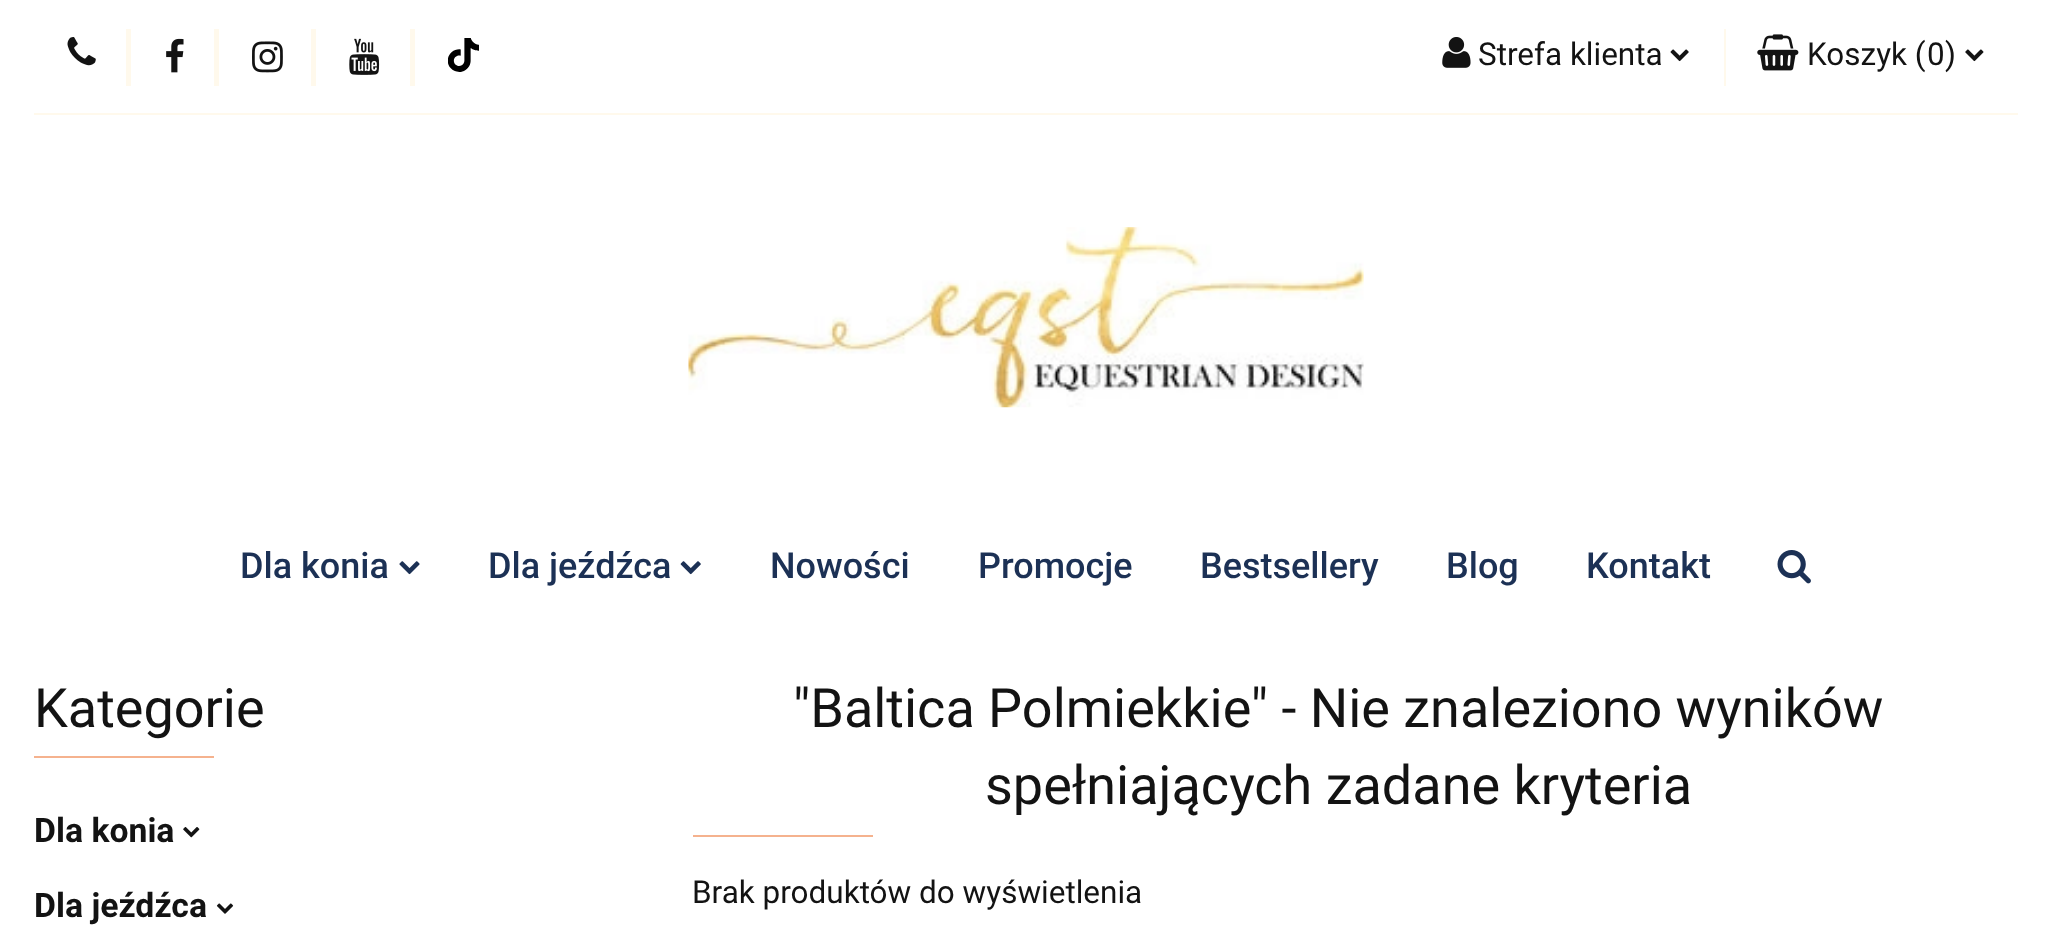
<svg xmlns="http://www.w3.org/2000/svg" width="2051" height="939">
<rect width="100%" height="100%" fill="#fff"/>
<rect x="34" y="113" width="1984" height="2" fill="#fff9ec"/>
<image x="67" y="37" width="29" height="29" href="media/1.png"/>
<rect x="126" y="29" width="5" height="57" fill="#fff9ec"/>
<image x="166" y="38" width="18" height="35" href="media/2.png"/>
<rect x="214" y="29" width="5" height="57" fill="#fff9ec"/>
<image x="252" y="41" width="31" height="32" href="media/3.png"/>
<rect x="311" y="29" width="5" height="57" fill="#fff9ec"/>
<image x="349" y="38" width="31" height="37" href="media/4.png"/>
<rect x="410" y="29" width="5" height="57" fill="#fff9ec"/>
<image x="448" y="38" width="31" height="34" href="media/5.png"/>
<image x="1442" y="37" width="29" height="31" href="media/6.png"/>
<text x="1478" y="65" style="font-family:Roboto;font-size:31.5px;fill:#131313">Strefa klienta</text>
<image x="1670" y="49" width="19" height="13" href="media/7.png"/>
<rect x="1724" y="29" width="2" height="57" fill="#fff9ec"/>
<image x="1757" y="34" width="42" height="37" href="media/8.png"/>
<text x="1807" y="65" style="font-family:Roboto;font-size:31.5px;fill:#131313">Koszyk (</text>
<text x="1927" y="65" style="font-family:Roboto;font-size:31.5px;fill:#131313">0</text>
<text x="1945" y="65" style="font-family:Roboto;font-size:31.5px;fill:#131313">)</text>
<image x="1965" y="49" width="19" height="13" href="media/9.png"/>
<image x="688" y="227" width="676" height="181" href="media/10.png"/>
<text x="240" y="578" style="font-family:Roboto;font-size:36px;font-weight:500;fill:#1c3155">Dla konia</text>
<image x="399" y="561" width="21" height="14" href="media/11.png"/>
<text x="488" y="578" style="font-family:Roboto;font-size:36px;font-weight:500;fill:#1c3155">Dla jeźdźca</text>
<image x="680" y="561" width="21" height="14" href="media/12.png"/>
<text x="770" y="578" style="font-family:Roboto;font-size:36px;font-weight:500;fill:#1c3155">Nowości</text>
<text x="978" y="578" style="font-family:Roboto;font-size:36px;font-weight:500;fill:#1c3155">Promocje</text>
<text x="1200" y="578" style="font-family:Roboto;font-size:36px;font-weight:500;fill:#1c3155">Bestsellery</text>
<text x="1446" y="578" style="font-family:Roboto;font-size:36px;font-weight:500;fill:#1c3155">Blog</text>
<text x="1586" y="578" style="font-family:Roboto;font-size:36px;font-weight:500;fill:#1c3155">Kontakt</text>
<image x="1777" y="550" width="34" height="34" href="media/13.png"/>
<text x="34" y="727" style="font-family:Roboto;font-size:54px;fill:#131313">Kategorie</text>
<rect x="34" y="756" width="180" height="2" fill="#f5b28e"/>
<text x="34" y="842" style="font-family:Roboto;font-size:33.75px;font-weight:bold;fill:#131313">Dla konia</text>
<image x="183" y="827" width="17" height="11" href="media/14.png"/>
<text x="34" y="917" style="font-family:Roboto;font-size:33.75px;font-weight:bold;fill:#131313">Dla jeźdźca</text>
<image x="216" y="903" width="18" height="11" href="media/15.png"/>
<text x="793" y="727" style="font-family:Roboto;font-size:54px;fill:#131313">"Baltica Polmiekkie" - Nie znaleziono wyników</text>
<text x="985" y="804" style="font-family:Roboto;font-size:54px;fill:#131313">spełniających zadane kryteria</text>
<rect x="693" y="835" width="180" height="2" fill="#f5b28e"/>
<text x="692" y="903" style="font-family:Roboto;font-size:31.5px;fill:#131313">Brak produktów do wyświetlenia</text>
</svg>
